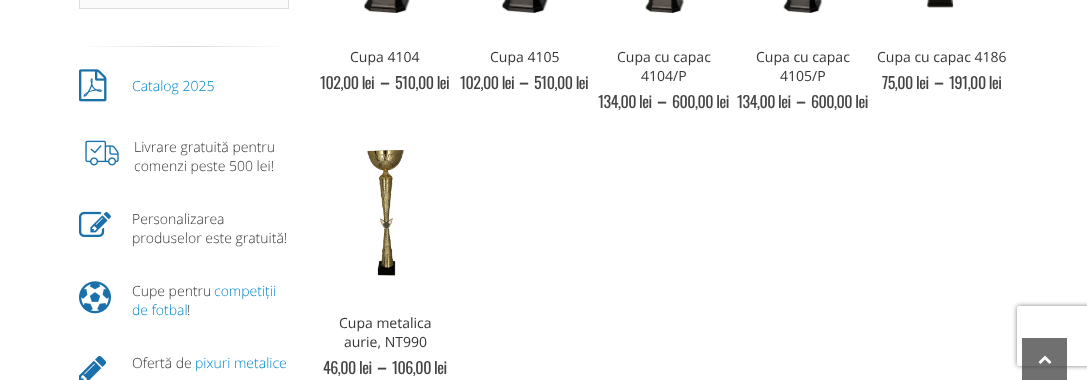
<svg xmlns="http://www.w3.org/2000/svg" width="1087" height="380">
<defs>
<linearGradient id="g1" gradientUnits="userSpaceOnUse" x1="79" y1="47" x2="289" y2="46"><stop offset="0" stop-color="#fff"/><stop offset="0.5" stop-color="#d9d9d9"/><stop offset="1" stop-color="#fff"/></linearGradient>
<clipPath id="clip1"><path d="M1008 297h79v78h-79zm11 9h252c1 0 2 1 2 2v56c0 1-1 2-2 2h-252c-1 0-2-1-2-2v-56c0-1 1-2 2-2z" clip-rule="evenodd"/></clipPath>
</defs>
<rect width="100%" height="100%" fill="#fff"/>
<rect x="79.5" y="-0.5" width="209" height="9" fill="#fbfbfb" stroke="#ddd"/>
<rect x="79" y="46" width="210" height="1" fill="url(#g1)"/>
<image x="79" y="69" width="28" height="33" href="media/1.png"/>
<text x="132" y="91" style="font-family:Open Sans;font-size:14px;font-weight:300;fill:#08c">Catalog 2025</text>
<image x="85" y="140" width="34" height="26" href="media/2.png"/>
<text x="134" y="152" style="font-family:Open Sans;font-size:14px;font-weight:300;fill:#363639">Livrare gratuită pentru</text>
<text x="134" y="171" style="font-family:Open Sans;font-size:14px;font-weight:300;fill:#363639">comenzi peste 500 lei!</text>
<image x="79" y="211" width="32" height="26" href="media/3.png"/>
<text x="132" y="224" style="font-family:Open Sans;font-size:14px;font-weight:300;fill:#363639">Personalizarea</text>
<text x="132" y="243" style="font-family:Open Sans;font-size:14px;font-weight:300;fill:#363639">produselor este gratuită!</text>
<image x="79" y="281" width="32" height="33" href="media/4.png"/>
<text x="132" y="296" style="font-family:Open Sans;font-size:14px;font-weight:300;fill:#363639">Cupe pentru</text>
<text x="214" y="296" style="font-family:Open Sans;font-size:14px;font-weight:300;fill:#08c">competiții</text>
<text x="132" y="315" style="font-family:Open Sans;font-size:14px;font-weight:300;fill:#08c">de fotbal</text>
<text x="187" y="315" style="font-family:Open Sans;font-size:14px;font-weight:300;fill:#363639">!</text>
<image x="79" y="356" width="27" height="24" href="media/5.png"/>
<text x="132" y="368" style="font-family:Open Sans;font-size:14px;font-weight:300;fill:#363639">Ofertă de</text>
<text x="195" y="368" style="font-family:Open Sans;font-size:14px;font-weight:300;fill:#08c">pixuri metalice</text>
<image x="363" y="0" width="47" height="13" href="media/6.png"/>
<text x="350" y="62" style="font-family:Open Sans;font-size:14px;fill:#363639">Cupa 4104</text>
<text x="320" y="89" style="font-family:Oswald;font-size:16px;letter-spacing:-0.5px;fill:#444">102,00 lei</text>
<text x="380" y="89" style="font-family:Open Sans;font-size:20px;font-weight:600;fill:#444">–</text>
<text x="395" y="89" style="font-family:Oswald;font-size:16px;letter-spacing:-0.5px;fill:#444">510,00 lei</text>
<image x="501" y="0" width="47" height="13" href="media/7.png"/>
<text x="490" y="62" style="font-family:Open Sans;font-size:14px;fill:#363639">Cupa 4105</text>
<text x="460" y="89" style="font-family:Oswald;font-size:16px;letter-spacing:-0.5px;fill:#444">102,00 lei</text>
<text x="519" y="89" style="font-family:Open Sans;font-size:20px;font-weight:600;fill:#444">–</text>
<text x="534" y="89" style="font-family:Oswald;font-size:16px;letter-spacing:-0.5px;fill:#444">510,00 lei</text>
<image x="645" y="0" width="39" height="13" href="media/8.png"/>
<text x="617" y="62" style="font-family:Open Sans;font-size:14px;fill:#363639">Cupa cu capac</text>
<text x="641" y="81" style="font-family:Open Sans;font-size:14px;fill:#363639">4104/P</text>
<text x="598" y="108" style="font-family:Oswald;font-size:16px;letter-spacing:-0.5px;fill:#444">134,00 lei</text>
<text x="657" y="108" style="font-family:Open Sans;font-size:20px;font-weight:600;fill:#444">–</text>
<text x="672" y="108" style="font-family:Oswald;font-size:16px;letter-spacing:-0.5px;fill:#444">600,00 lei</text>
<image x="783" y="0" width="39" height="13" href="media/9.png"/>
<text x="756" y="62" style="font-family:Open Sans;font-size:14px;fill:#363639">Cupa cu capac</text>
<text x="780" y="81" style="font-family:Open Sans;font-size:14px;fill:#363639">4105/P</text>
<text x="737" y="108" style="font-family:Oswald;font-size:16px;letter-spacing:-0.5px;fill:#444">134,00 lei</text>
<text x="796" y="108" style="font-family:Open Sans;font-size:20px;font-weight:600;fill:#444">–</text>
<text x="811" y="108" style="font-family:Oswald;font-size:16px;letter-spacing:-0.5px;fill:#444">600,00 lei</text>
<image x="926" y="0" width="28" height="8" href="media/10.png"/>
<text x="877" y="62" style="font-family:Open Sans;font-size:14px;fill:#363639">Cupa cu capac 4186</text>
<text x="882" y="89" style="font-family:Oswald;font-size:16px;letter-spacing:-0.5px;fill:#444">75,00 lei</text>
<text x="934" y="89" style="font-family:Open Sans;font-size:20px;font-weight:600;fill:#444">–</text>
<text x="949" y="89" style="font-family:Oswald;font-size:16px;letter-spacing:-0.5px;fill:#444">191,00 lei</text>
<image x="367" y="150" width="37" height="126" href="media/11.png"/>
<text x="339" y="328" style="font-family:Open Sans;font-size:14px;fill:#363639">Cupa metalica</text>
<text x="344" y="347" style="font-family:Open Sans;font-size:14px;fill:#363639">aurie, NT990</text>
<text x="323" y="374" style="font-family:Oswald;font-size:16px;letter-spacing:-0.5px;fill:#444">46,00 lei</text>
<text x="377" y="374" style="font-family:Open Sans;font-size:20px;font-weight:600;fill:#444">–</text>
<text x="392" y="374" style="font-family:Oswald;font-size:16px;letter-spacing:-0.5px;fill:#444">106,00 lei</text>
<g clip-path="url(#clip1)">
<rect x="1017" y="306" width="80" height="60" rx="2" fill="#808080" filter="blur(2.5px)"/>
</g>
<rect x="1022" y="338" width="45" height="42" fill="#404040bf"/>
<image x="1038" y="355" width="14" height="9" href="media/12.png"/>
</svg>
